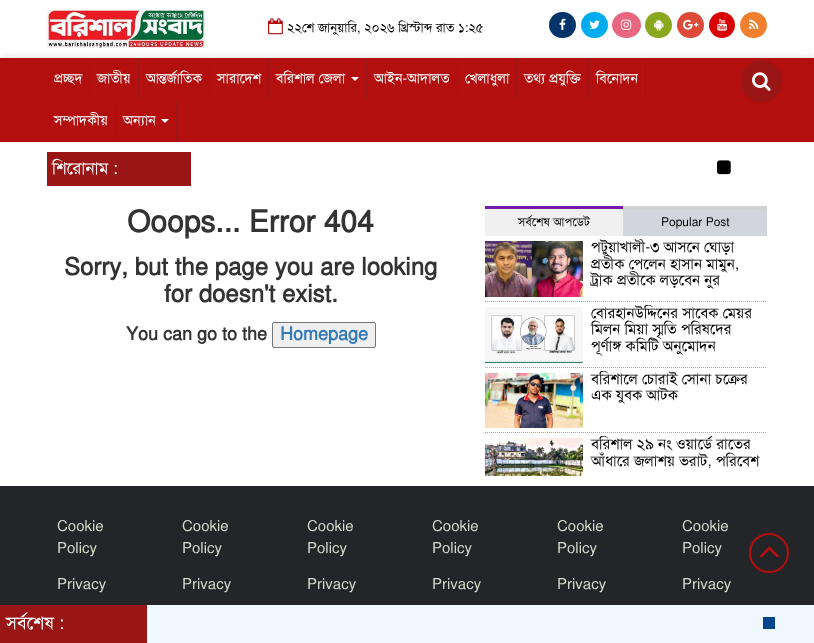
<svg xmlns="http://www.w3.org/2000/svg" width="814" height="643">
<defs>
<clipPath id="clip1"><rect x="485" y="239" width="282" height="62"/></clipPath>
<clipPath id="clip2"><rect x="485" y="305" width="282" height="62"/></clipPath>
<clipPath id="clip3"><rect x="485" y="371" width="282" height="61"/></clipPath>
<clipPath id="clip4"><rect x="485" y="436" width="282" height="40"/></clipPath>
</defs>
<rect width="100%" height="100%" fill="#fff"/>
<rect y="58" width="814" height="84" fill="#dddbdb" filter="blur(5px)"/>
<image x="47" y="10" width="158" height="38" href="media/1.png"/>
<image x="268" y="18" width="15" height="17" href="media/2.png"/>
<text x="287" y="32" style="font-family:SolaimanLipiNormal;font-size:13px;fill:#000">২২শে জানুয়ারি, ২০২৬ খ্রিস্টাব্দ রাত ১:২৫</text>
<rect x="549" y="12" width="27" height="26" rx="13" fill="#023369"/>
<image x="559" y="18" width="7" height="12" href="media/3.png"/>
<rect x="581" y="12" width="27" height="26" rx="13" fill="#00acee"/>
<image x="589" y="20" width="11" height="9" href="media/4.png"/>
<ellipse cx="626.5" cy="25" rx="14.5" ry="13" fill="#e9667f"/>
<image x="621" y="19" width="11" height="11" href="media/5.png"/>
<rect x="645" y="12" width="27" height="26" rx="13" fill="#89a81e"/>
<image x="654" y="19" width="10" height="12" href="media/6.png"/>
<rect x="677" y="12" width="27" height="26" rx="13" fill="#dd4a3a"/>
<image x="683" y="19" width="16" height="11" href="media/7.png"/>
<circle cx="722" cy="25" r="13" fill="#d80202"/>
<image x="717" y="18" width="11" height="13" href="media/8.png"/>
<rect x="740" y="12" width="27" height="26" rx="13" fill="#ee802f"/>
<image x="749" y="19" width="10" height="10" href="media/9.png"/>
<rect y="58" width="814" height="84" fill="#b30f0f"/>
<rect x="89" y="58" width="1" height="42" fill="#9a1515"/>
<text x="54" y="83" style="font-family:SolaimanLipiNormal;font-size:14px;fill:#fff">প্রচ্ছদ</text>
<rect x="138" y="58" width="1" height="42" fill="#9a1515"/>
<text x="97" y="83" style="font-family:SolaimanLipiNormal;font-size:14px;fill:#fff">জাতীয়</text>
<rect x="209" y="58" width="1" height="42" fill="#9a1515"/>
<text x="146" y="83" style="font-family:SolaimanLipiNormal;font-size:14px;fill:#fff">আন্তর্জাতিক</text>
<rect x="268" y="58" width="1" height="42" fill="#9a1515"/>
<text x="217" y="83" style="font-family:SolaimanLipiNormal;font-size:14px;fill:#fff">সারাদেশ</text>
<rect x="366" y="58" width="1" height="42" fill="#9a1515"/>
<text x="276" y="83" style="font-family:SolaimanLipiNormal;font-size:14px;fill:#fff">বরিশাল জেলা</text>
<path d="M351 77h8l-4 4z" fill="#fff"/>
<rect x="457" y="58" width="1" height="42" fill="#9a1515"/>
<text x="374" y="83" style="font-family:SolaimanLipiNormal;font-size:14px;fill:#fff">আইন-আদালত</text>
<rect x="516" y="58" width="1" height="42" fill="#9a1515"/>
<text x="465" y="83" style="font-family:SolaimanLipiNormal;font-size:14px;fill:#fff">খেলাধুলা</text>
<rect x="588" y="58" width="1" height="42" fill="#9a1515"/>
<text x="524" y="83" style="font-family:SolaimanLipiNormal;font-size:14px;fill:#fff">তথ্য প্রযুক্তি</text>
<rect x="645" y="58" width="1" height="42" fill="#9a1515"/>
<text x="596" y="83" style="font-family:SolaimanLipiNormal;font-size:14px;fill:#fff">বিনোদন</text>
<rect x="115" y="100" width="1" height="42" fill="#9a1515"/>
<text x="54" y="125" style="font-family:SolaimanLipiNormal;font-size:14px;fill:#fff">সম্পাদকীয়</text>
<rect x="176" y="100" width="1" height="42" fill="#9a1515"/>
<text x="123" y="125" style="font-family:SolaimanLipiNormal;font-size:14px;fill:#fff">অন্যান</text>
<path d="M161 119h8l-4 4z" fill="#fff"/>
<rect x="741" y="60" width="41" height="42" rx="20.5" fill="#9a1515"/>
<image x="752" y="72" width="19" height="19" href="media/10.png"/>
<rect y="142" width="814" height="7" fill="#fff"/>
<rect x="47" y="152" width="144" height="34" fill="#9a1515"/>
<text x="52" y="174" style="font-family:SolaimanLipiNormal;font-size:17px;fill:#fff">শিরোনাম :</text>
<image x="717" y="160" width="14" height="15" href="media/11.png"/>
<text x="127" y="232" style="font-family:SolaimanLipiNormal;font-size:30px;font-weight:bold;fill:#333">Ooops... Error 404</text>
<text x="64" y="275" style="font-family:SolaimanLipiNormal;font-size:24px;font-weight:bold;fill:#333">Sorry, but the page you are looking</text>
<text x="164" y="302" style="font-family:SolaimanLipiNormal;font-size:24px;font-weight:bold;fill:#333">for doesn't exist.</text>
<text x="126" y="340" style="font-family:SolaimanLipiNormal;font-size:18px;font-weight:bold;fill:#333">You can go to the</text>
<rect x="272.5" y="322.5" width="103" height="25" rx="1.5" fill="#efefef" stroke="#767676"/>
<text x="280" y="340" style="font-family:SolaimanLipiNormal;font-size:18px;font-weight:bold;fill:#337ab7">Homepage</text>
<rect x="623" y="209" width="144" height="27" fill="#d2d5db"/>
<rect x="485" y="209" width="138" height="27" fill="#f0f0f0"/>
<rect x="485" y="206" width="138" height="3" fill="#7719aa"/>
<text x="518" y="226" style="font-family:SolaimanLipiNormal;font-size:12px;fill:#000">সর্বশেষ আপডেট</text>
<rect x="623" y="206" width="144" height="3" fill="#d2d2d2"/>
<text x="661" y="226" style="font-family:SolaimanLipiNormal;font-size:12px;fill:#000">Popular Post</text>
<path d="M485 301.5h282" fill="none" stroke="#a6a6a6" stroke-dasharray="1 1"/>
<image x="485" y="241" width="98" height="56" href="media/12.png"/>
<g clip-path="url(#clip1)">
<text x="591" y="252" style="font-family:SolaimanLipiNormal;font-size:15px;fill:#000">পটুয়াখালী-৩ আসনে ঘোড়া</text>
</g>
<text x="591" y="269" style="font-family:SolaimanLipiNormal;font-size:15px;fill:#000">প্রতীক পেলেন হাসান মামুন,</text>
<text x="591" y="285" style="font-family:SolaimanLipiNormal;font-size:15px;fill:#000">ট্রাক প্রতীকে লড়বেন নুর</text>
<path d="M485 367.5h282" fill="none" stroke="#a6a6a6" stroke-dasharray="1 1"/>
<image x="485" y="307" width="98" height="56" href="media/13.png"/>
<g clip-path="url(#clip2)">
<text x="591" y="318" style="font-family:SolaimanLipiNormal;font-size:15px;fill:#000">বোরহানউদ্দিনের সাবেক মেয়র</text>
</g>
<text x="591" y="334" style="font-family:SolaimanLipiNormal;font-size:15px;fill:#000">মিলন মিয়া স্মৃতি পরিষদের</text>
<text x="591" y="351" style="font-family:SolaimanLipiNormal;font-size:15px;fill:#000">পূর্ণাঙ্গ কমিটি অনুমোদন</text>
<path d="M485 432.5h282" fill="none" stroke="#a6a6a6" stroke-dasharray="1 1"/>
<image x="485" y="373" width="98" height="55" href="media/14.png"/>
<g clip-path="url(#clip3)">
<text x="591" y="384" style="font-family:SolaimanLipiNormal;font-size:15px;fill:#000">বরিশালে চোরাই সোনা চক্রের</text>
</g>
<text x="591" y="400" style="font-family:SolaimanLipiNormal;font-size:15px;fill:#000">এক যুবক আটক</text>
<image x="485" y="438" width="98" height="38" href="media/15.png"/>
<g clip-path="url(#clip4)">
<text x="591" y="449" style="font-family:SolaimanLipiNormal;font-size:15px;fill:#000">বরিশাল ২৯ নং ওয়ার্ডে রাতের</text>
</g>
<text x="591" y="466" style="font-family:SolaimanLipiNormal;font-size:15px;fill:#000">আঁধারে জলাশয় ভরাট, পরিবেশ</text>
<rect y="486" width="814" height="119" fill="#232528"/>
<text x="57" y="531" style="font-family:SolaimanLipiNormal;font-size:15px;fill:#d3dbce">Cookie</text>
<text x="57" y="553" style="font-family:SolaimanLipiNormal;font-size:15px;fill:#d3dbce">Policy</text>
<text x="57" y="589" style="font-family:SolaimanLipiNormal;font-size:15px;fill:#d3dbce">Privacy</text>
<text x="182" y="531" style="font-family:SolaimanLipiNormal;font-size:15px;fill:#d3dbce">Cookie</text>
<text x="182" y="553" style="font-family:SolaimanLipiNormal;font-size:15px;fill:#d3dbce">Policy</text>
<text x="182" y="589" style="font-family:SolaimanLipiNormal;font-size:15px;fill:#d3dbce">Privacy</text>
<text x="307" y="531" style="font-family:SolaimanLipiNormal;font-size:15px;fill:#d3dbce">Cookie</text>
<text x="307" y="553" style="font-family:SolaimanLipiNormal;font-size:15px;fill:#d3dbce">Policy</text>
<text x="307" y="589" style="font-family:SolaimanLipiNormal;font-size:15px;fill:#d3dbce">Privacy</text>
<text x="432" y="531" style="font-family:SolaimanLipiNormal;font-size:15px;fill:#d3dbce">Cookie</text>
<text x="432" y="553" style="font-family:SolaimanLipiNormal;font-size:15px;fill:#d3dbce">Policy</text>
<text x="432" y="589" style="font-family:SolaimanLipiNormal;font-size:15px;fill:#d3dbce">Privacy</text>
<text x="557" y="531" style="font-family:SolaimanLipiNormal;font-size:15px;fill:#d3dbce">Cookie</text>
<text x="557" y="553" style="font-family:SolaimanLipiNormal;font-size:15px;fill:#d3dbce">Policy</text>
<text x="557" y="589" style="font-family:SolaimanLipiNormal;font-size:15px;fill:#d3dbce">Privacy</text>
<text x="682" y="531" style="font-family:SolaimanLipiNormal;font-size:15px;fill:#d3dbce">Cookie</text>
<text x="682" y="553" style="font-family:SolaimanLipiNormal;font-size:15px;fill:#d3dbce">Policy</text>
<text x="682" y="589" style="font-family:SolaimanLipiNormal;font-size:15px;fill:#d3dbce">Privacy</text>
<circle cx="769" cy="553" r="19" fill="none" stroke="#b30f0f" stroke-width="2"/>
<image x="759" y="546" width="20" height="12" href="media/16.png"/>
<rect x="147" y="605" width="667" height="38" fill="#f0f8ff"/>
<rect y="605" width="147" height="38" fill="#9a1515"/>
<text x="6" y="629" style="font-family:SolaimanLipiNormal;font-size:18px;fill:#fff">সর্বশেষ :</text>
<rect x="763" y="617" width="12" height="12" fill="#00468c"/>
</svg>
